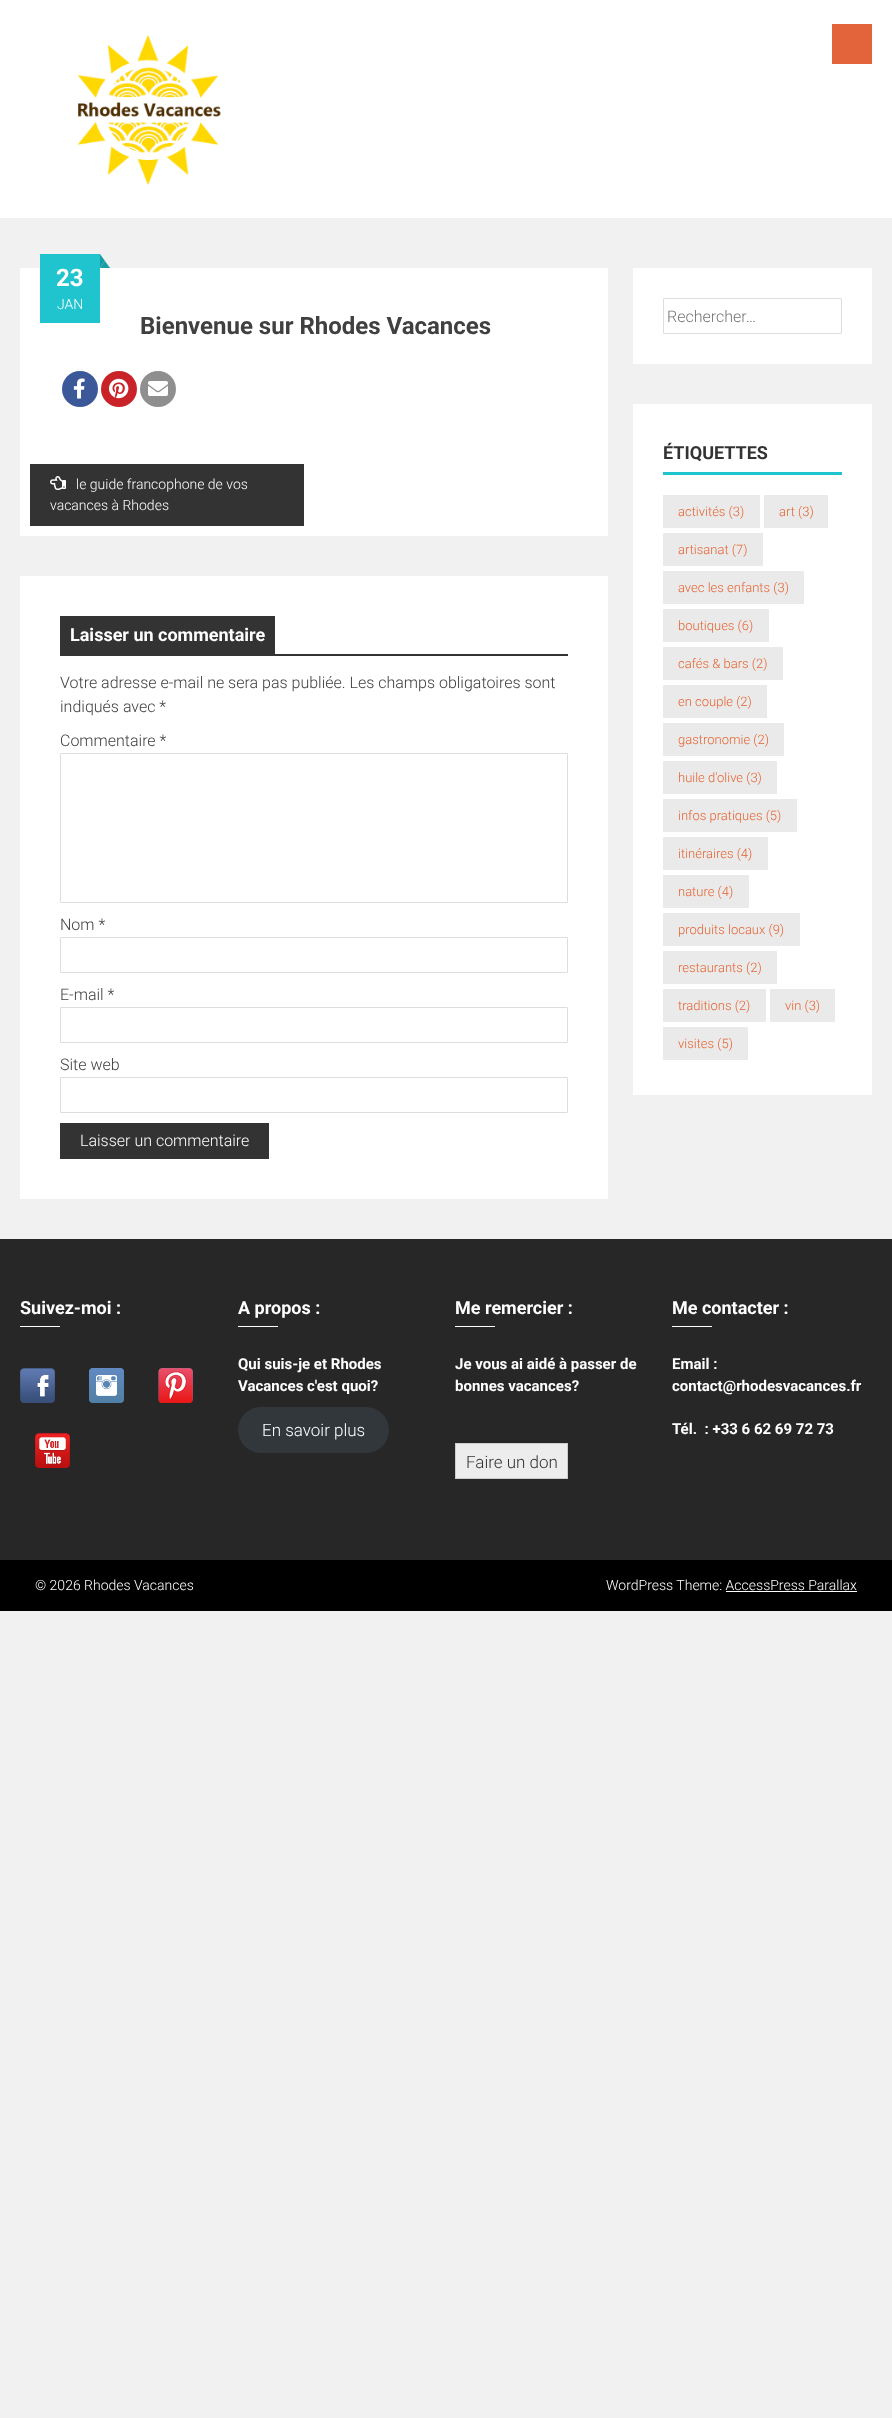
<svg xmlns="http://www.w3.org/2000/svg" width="892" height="2418">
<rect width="100%" height="100%" fill="#f1f1f1"/>
<rect width="892" height="218" fill="#fff"/>
<image x="77" y="35" width="144" height="150" href="media/1.png"/>
<rect x="832" y="24" width="40" height="40" fill="#e3633b"/>
<rect x="20" y="268" width="588" height="268" fill="#fff"/>
<rect x="40" y="254" width="60" height="69" fill="#20c4ce"/>
<path d="M110 268h-10l5-7z" fill="#1a9da5"/>
<path d="M100 268v-14l5 7z" fill="#1a9da5"/>
<text x="56" y="286" style="font-family:Roboto;font-size:24px;font-weight:bold;fill:#fff">23</text>
<text x="57" y="309" style="font-family:Roboto;font-size:14px;font-weight:300;fill:#fff">JAN</text>
<text x="140" y="334" style="font-family:Roboto;font-size:24px;font-weight:bold;fill:#404040">Bienvenue sur Rhodes Vacances</text>
<circle cx="80" cy="389" r="18" fill="#3b5998"/>
<image x="73" y="378" width="12" height="21" href="media/2.png"/>
<circle cx="119" cy="389" r="18" fill="#c92228"/>
<image x="109" y="378" width="20" height="21" href="media/3.png"/>
<circle cx="158" cy="389" r="18" fill="#8f8f8f"/>
<image x="148" y="381" width="20" height="15" href="media/4.png"/>
<rect x="30" y="464" width="274" height="62" fill="#333"/>
<image x="50" y="476" width="16" height="14" href="media/5.png"/>
<text x="76" y="489" style="font-family:Roboto;font-size:14px;font-weight:300;fill:#fff">le guide francophone de vos</text>
<text x="50" y="510" style="font-family:Roboto;font-size:14px;font-weight:300;fill:#fff">vacances à Rhodes</text>
<rect x="20" y="576" width="588" height="623" fill="#fff"/>
<rect x="60" y="616" width="215" height="38" fill="#333"/>
<text x="70" y="641" style="font-family:Roboto;font-size:18px;font-weight:bold;fill:#fff">Laisser un commentaire</text>
<rect x="60" y="654" width="508" height="2" fill="#333"/>
<text x="60" y="688" style="font-family:Roboto;font-size:16px;font-weight:300;fill:#404040">Votre adresse e-mail ne sera pas publiée. Les champs obligatoires sont</text>
<text x="60" y="712" style="font-family:Roboto;font-size:16px;font-weight:300;fill:#404040">indiqués avec *</text>
<text x="60" y="746" style="font-family:Roboto;font-size:16px;font-weight:300;fill:#404040">Commentaire *</text>
<rect x="60.5" y="753.5" width="507" height="149" rx="0.5" fill="none" stroke="#ddd"/>
<text x="60" y="930" style="font-family:Roboto;font-size:16px;font-weight:300;fill:#404040">Nom *</text>
<rect x="60.5" y="937.5" width="507" height="35" rx="0.5" fill="none" stroke="#ddd"/>
<text x="60" y="1000" style="font-family:Roboto;font-size:16px;font-weight:300;fill:#404040">E-mail *</text>
<rect x="60.5" y="1007.5" width="507" height="35" rx="0.5" fill="none" stroke="#ddd"/>
<text x="60" y="1070" style="font-family:Roboto;font-size:16px;font-weight:300;fill:#404040">Site web</text>
<rect x="60.5" y="1077.5" width="507" height="35" rx="0.5" fill="none" stroke="#ddd"/>
<rect x="60" y="1123" width="209" height="36" fill="#333"/>
<text x="80" y="1146" style="font-family:Roboto;font-size:16px;font-weight:300;fill:#fff">Laisser un commentaire</text>
<rect x="633" y="268" width="239" height="96" fill="#fff"/>
<rect x="663.5" y="298.5" width="178" height="35" rx="0.5" fill="none" stroke="#ddd"/>
<text x="667" y="322" style="font-family:Roboto;font-size:16px;font-weight:300;fill:#757575">Rechercher…</text>
<rect x="633" y="404" width="239" height="691" fill="#fff"/>
<rect x="663" y="472" width="179" height="3" fill="#20c4ce"/>
<text x="663" y="459" style="font-family:Roboto;font-size:18px;font-weight:bold;fill:#333">ÉTIQUETTES</text>
<rect x="663" y="495" width="97" height="33" fill="#eaeaea"/>
<text x="678" y="516" style="font-family:Roboto;font-size:13px;font-weight:300;fill:#e66432">activités (3)</text>
<rect x="764" y="495" width="64" height="33" fill="#eaeaea"/>
<text x="779" y="516" style="font-family:Roboto;font-size:13px;font-weight:300;fill:#e66432">art (3)</text>
<rect x="663" y="533" width="100" height="33" fill="#eaeaea"/>
<text x="678" y="554" style="font-family:Roboto;font-size:13px;font-weight:300;fill:#e66432">artisanat (7)</text>
<rect x="663" y="571" width="141" height="33" fill="#eaeaea"/>
<text x="678" y="592" style="font-family:Roboto;font-size:13px;font-weight:300;fill:#e66432">avec les enfants (3)</text>
<rect x="663" y="609" width="106" height="33" fill="#eaeaea"/>
<text x="678" y="630" style="font-family:Roboto;font-size:13px;font-weight:300;fill:#e66432">boutiques (6)</text>
<rect x="663" y="647" width="120" height="33" fill="#eaeaea"/>
<text x="678" y="668" style="font-family:Roboto;font-size:13px;font-weight:300;fill:#e66432">cafés &amp; bars (2)</text>
<rect x="663" y="685" width="104" height="33" fill="#eaeaea"/>
<text x="678" y="706" style="font-family:Roboto;font-size:13px;font-weight:300;fill:#e66432">en couple (2)</text>
<rect x="663" y="723" width="121" height="33" fill="#eaeaea"/>
<text x="678" y="744" style="font-family:Roboto;font-size:13px;font-weight:300;fill:#e66432">gastronomie (2)</text>
<rect x="663" y="761" width="114" height="33" fill="#eaeaea"/>
<text x="678" y="782" style="font-family:Roboto;font-size:13px;font-weight:300;fill:#e66432">huile d'olive (3)</text>
<rect x="663" y="799" width="134" height="33" fill="#eaeaea"/>
<text x="678" y="820" style="font-family:Roboto;font-size:13px;font-weight:300;fill:#e66432">infos pratiques (5)</text>
<rect x="663" y="837" width="105" height="33" fill="#eaeaea"/>
<text x="678" y="858" style="font-family:Roboto;font-size:13px;font-weight:300;fill:#e66432">itinéraires (4)</text>
<rect x="663" y="875" width="86" height="33" fill="#eaeaea"/>
<text x="678" y="896" style="font-family:Roboto;font-size:13px;font-weight:300;fill:#e66432">nature (4)</text>
<rect x="663" y="913" width="137" height="33" fill="#eaeaea"/>
<text x="678" y="934" style="font-family:Roboto;font-size:13px;font-weight:300;fill:#e66432">produits locaux (9)</text>
<rect x="663" y="951" width="114" height="33" fill="#eaeaea"/>
<text x="678" y="972" style="font-family:Roboto;font-size:13px;font-weight:300;fill:#e66432">restaurants (2)</text>
<rect x="663" y="989" width="103" height="33" fill="#eaeaea"/>
<text x="678" y="1010" style="font-family:Roboto;font-size:13px;font-weight:300;fill:#e66432">traditions (2)</text>
<rect x="770" y="989" width="65" height="33" fill="#eaeaea"/>
<text x="785" y="1010" style="font-family:Roboto;font-size:13px;font-weight:300;fill:#e66432">vin (3)</text>
<rect x="663" y="1027" width="85" height="33" fill="#eaeaea"/>
<text x="678" y="1048" style="font-family:Roboto;font-size:13px;font-weight:300;fill:#e66432">visites (5)</text>
<rect y="1560" width="892" height="51" fill="#000"/>
<rect y="1239" width="892" height="321" fill="#272727"/>
<text x="20" y="1314" style="font-family:Roboto;font-size:18px;font-weight:bold;fill:#fff">Suivez-moi :</text>
<rect x="20" y="1326" width="40" height="1" fill="#fff"/>
<image x="20" y="1368" width="35" height="35" href="media/6.png"/>
<image x="89" y="1368" width="35" height="35" href="media/7.png"/>
<image x="158" y="1368" width="35" height="35" href="media/8.png"/>
<image x="35" y="1433" width="35" height="35" href="media/9.png"/>
<text x="238" y="1314" style="font-family:Roboto;font-size:18px;font-weight:bold;fill:#fff">A propos :</text>
<rect x="238" y="1326" width="40" height="1" fill="#fff"/>
<text x="238" y="1369" style="font-family:Roboto;font-size:15px;font-weight:bold;fill:#fff">Qui suis-je et Rhodes</text>
<text x="238" y="1391" style="font-family:Roboto;font-size:15px;font-weight:bold;fill:#fff">Vacances c'est quoi?</text>
<rect x="238" y="1407" width="151" height="46" rx="23" fill="#32373c"/>
<text x="262" y="1436" style="font-family:Roboto;font-size:17px;font-weight:300;fill:#fff">En savoir plus</text>
<text x="455" y="1314" style="font-family:Roboto;font-size:18px;font-weight:bold;fill:#fff">Me remercier :</text>
<rect x="455" y="1326" width="40" height="1" fill="#fff"/>
<text x="455" y="1369" style="font-family:Roboto;font-size:15px;font-weight:bold;fill:#fff">Je vous ai aidé à passer de</text>
<text x="455" y="1391" style="font-family:Roboto;font-size:15px;font-weight:bold;fill:#fff">bonnes vacances?</text>
<rect x="455.5" y="1443.5" width="112" height="35" fill="#ededed" stroke="#ccc"/>
<text x="466" y="1468" style="font-family:Roboto;font-size:17px;font-weight:300;fill:#333">Faire un don</text>
<text x="672" y="1314" style="font-family:Roboto;font-size:18px;font-weight:bold;fill:#fff">Me contacter :</text>
<rect x="672" y="1326" width="40" height="1" fill="#fff"/>
<text x="672" y="1369" style="font-family:Roboto;font-size:15px;font-weight:bold;fill:#fff">Email :</text>
<text x="672" y="1391" style="font-family:Roboto;font-size:15px;font-weight:bold;fill:#fff">contact@rhodesvacances.fr</text>
<text x="672" y="1434" style="font-family:Roboto;font-size:15px;font-weight:bold;fill:#fff" xml:space="preserve">Tél.  : +33 6 62 69 72 73</text>
<text x="35" y="1590" style="font-family:Roboto;font-size:14px;font-weight:300;fill:#fff">© 2026 Rhodes Vacances</text>
<text x="606" y="1590" style="font-family:Roboto;font-size:14px;font-weight:300;fill:#fff">WordPress Theme: AccessPress Parallax</text>
<rect x="726" y="1591" width="131" height="1" fill="#fff"/>
</svg>
